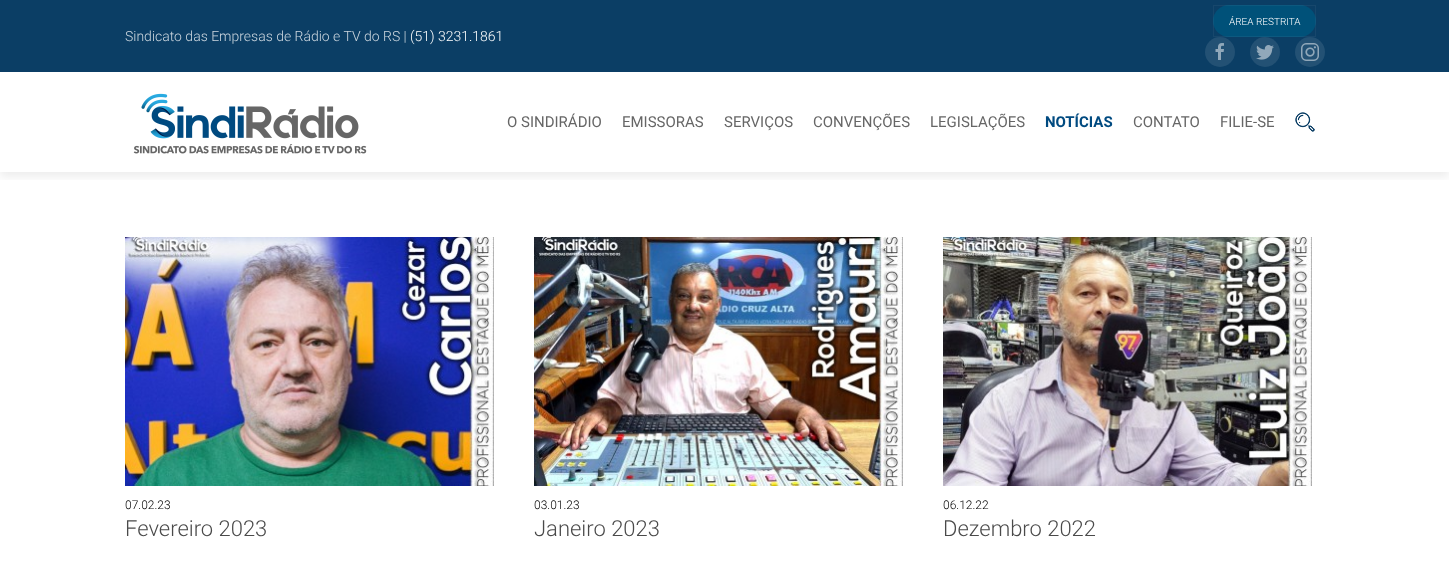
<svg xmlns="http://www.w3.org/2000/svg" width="1449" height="578">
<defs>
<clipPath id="clip1"><rect x="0" y="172" width="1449" height="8"/></clipPath>
</defs>
<rect width="100%" height="100%" fill="#fff"/>
<rect width="1449" height="72" fill="#0b3e65"/>
<rect x="1213" y="5" width="103" height="32" rx="16" fill="#005179"/>
<rect x="1213.5" y="5.5" width="102" height="31" fill="none" stroke="#ffffff0d"/>
<text x="1229" y="25" style="font-family:Roboto;font-size:10px;font-weight:300;fill:#fff">ÁREA RESTRITA</text>
<circle cx="1220" cy="52" r="15" fill="#235174"/>
<image x="1215" y="43" width="9" height="17" href="media/1.png"/>
<circle cx="1265" cy="52" r="15" fill="#235174"/>
<image x="1256" y="45" width="18" height="15" href="media/2.png"/>
<circle cx="1310" cy="52" r="15" fill="#235174"/>
<image x="1301" y="43" width="18" height="18" href="media/3.png"/>
<text x="125" y="41" style="font-family:Roboto;font-size:14px;font-weight:300;fill:#ced8e0">Sindicato das Empresas de Rádio e TV do RS |</text>
<text x="410" y="41" style="font-family:Roboto;font-size:14px;font-weight:300;fill:#fff">(51) 3231.1861</text>
<g clip-path="url(#clip1)">
<rect y="77" width="1449" height="100" fill="#00000012" filter="blur(5px)"/>
</g>
<image x="133" y="93" width="234" height="61" href="media/4.png"/>
<text x="507" y="127" style="font-family:Roboto;font-size:15px;fill:#666">O SINDIRÁDIO</text>
<text x="622" y="127" style="font-family:Roboto;font-size:15px;fill:#666">EMISSORAS</text>
<text x="724" y="127" style="font-family:Roboto;font-size:15px;fill:#666">SERVIÇOS</text>
<text x="813" y="127" style="font-family:Roboto;font-size:15px;fill:#666">CONVENÇÕES</text>
<text x="930" y="127" style="font-family:Roboto;font-size:15px;fill:#666">LEGISLAÇÕES</text>
<text x="1045" y="127" style="font-family:Roboto;font-size:15px;font-weight:bold;fill:#004a80">NOTÍCIAS</text>
<text x="1133" y="127" style="font-family:Roboto;font-size:15px;fill:#666">CONTATO</text>
<text x="1220" y="127" style="font-family:Roboto;font-size:15px;fill:#666">FILIE-SE</text>
<image x="1295" y="112" width="20" height="20" href="media/5.png"/>
<image x="125" y="237" width="369" height="249" href="media/6.png"/>
<text x="125" y="509" style="font-family:Roboto;font-size:12px;font-weight:300;fill:#000">07.02.23</text>
<text x="125" y="536" style="font-family:Roboto;font-size:22px;font-weight:300;fill:#4a4a4a">Fevereiro 2023</text>
<image x="534" y="237" width="369" height="249" href="media/7.png"/>
<text x="534" y="509" style="font-family:Roboto;font-size:12px;font-weight:300;fill:#000">03.01.23</text>
<text x="534" y="536" style="font-family:Roboto;font-size:22px;font-weight:300;fill:#4a4a4a">Janeiro 2023</text>
<image x="943" y="237" width="369" height="249" href="media/8.png"/>
<text x="943" y="509" style="font-family:Roboto;font-size:12px;font-weight:300;fill:#000">06.12.22</text>
<text x="943" y="536" style="font-family:Roboto;font-size:22px;font-weight:300;fill:#4a4a4a">Dezembro 2022</text>
</svg>
